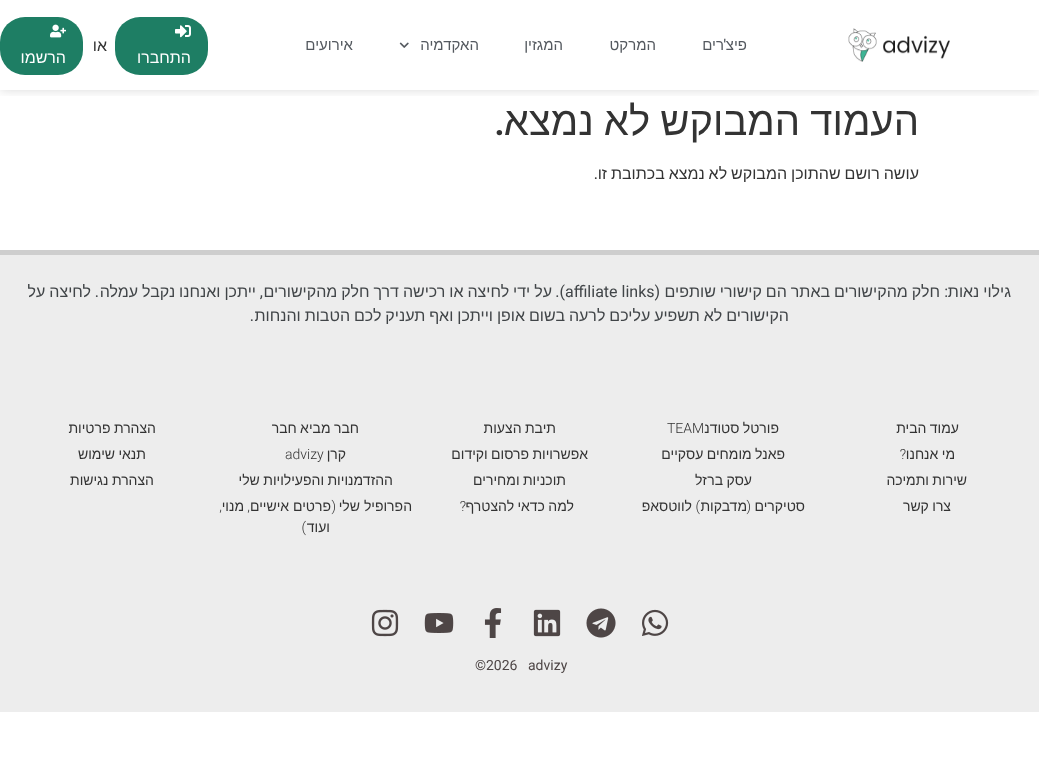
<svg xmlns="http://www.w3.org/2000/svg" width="1039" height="779">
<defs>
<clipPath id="clip1"><rect x="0" y="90" width="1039" height="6"/></clipPath>
</defs>
<rect width="100%" height="100%" fill="#fff"/>
<g clip-path="url(#clip1)">
<rect width="1039" height="90" fill="#00000026" filter="blur(5.5px)"/>
</g>
<image x="848" y="28" width="102" height="34" href="media/1.png"/>
<text x="726" y="50" style="font-family:Roboto;font-size:15px;font-weight:500;direction:rtl;fill:#54595f">'</text>
<text x="747" y="50" style="font-family:Liberation Sans;font-size:15px;direction:rtl;fill:#54595f">פיצ</text>
<text x="724" y="50" style="font-family:Liberation Sans;font-size:15px;direction:rtl;fill:#54595f">רים</text>
<text x="656" y="50" style="font-family:Liberation Sans;font-size:15px;direction:rtl;fill:#54595f">המרקט</text>
<text x="563" y="50" style="font-family:Liberation Sans;font-size:15px;direction:rtl;fill:#54595f">המגזין</text>
<text x="479" y="50" style="font-family:Liberation Sans;font-size:15px;direction:rtl;fill:#54595f">האקדמיה</text>
<image x="399" y="42" width="10" height="6" href="media/2.png"/>
<text x="353" y="50" style="font-family:Liberation Sans;font-size:15px;direction:rtl;fill:#54595f">אירועים</text>
<rect x="115" y="17" width="93" height="58" rx="25" fill="#1e7e64"/>
<image x="175" y="25" width="16" height="13" href="media/3.png"/>
<text x="191" y="63" style="font-family:Liberation Sans;font-size:16px;direction:rtl;fill:#fff">התחברו</text>
<text x="107" y="51" style="font-family:Liberation Sans;font-size:16px;direction:rtl;fill:#333">או</text>
<rect y="17" width="83" height="58" rx="25" fill="#1e7e64"/>
<image x="50" y="24" width="16" height="14" href="media/4.png"/>
<text x="66" y="63" style="font-family:Liberation Sans;font-size:16px;direction:rtl;fill:#fff">הרשמו</text>
<text x="919" y="135" word-spacing="-1" style="font-family:Liberation Sans;font-size:40px;direction:rtl;fill:#333">העמוד המבוקש לא נמצא</text>
<text x="505" y="135" style="font-family:Roboto;font-size:40px;font-weight:500;direction:rtl;fill:#333">.</text>
<text x="919" y="179" word-spacing="-0.5" style="font-family:Liberation Sans;font-size:16px;direction:rtl;fill:#333">עושה רושם שהתוכן המבוקש לא נמצא בכתובת זו</text>
<text x="598" y="179" style="font-family:Roboto;font-size:16px;direction:rtl;fill:#333">.</text>
<rect y="255" width="1039" height="457" fill="#ededed"/>
<rect y="250" width="1039" height="5" fill="#cecece"/>
<text x="1011" y="297" word-spacing="-0.5" style="font-family:Liberation Sans;font-size:16px;direction:rtl;fill:#414548">גילוי נאות</text>
<text x="948" y="297" style="font-family:Roboto;font-size:16px;direction:rtl;fill:#414548">:</text>
<text x="940" y="297" word-spacing="-0.5" style="font-family:Liberation Sans;font-size:16px;direction:rtl;fill:#414548">חלק מהקישורים באתר הם קישורי שותפים</text>
<text x="660" y="297" style="font-family:Roboto;font-size:16px;direction:rtl;fill:#414548">(</text>
<text x="565" y="297" style="font-family:Roboto;font-size:16px;fill:#414548">affiliate links</text>
<text x="565" y="297" style="font-family:Roboto;font-size:16px;direction:rtl;fill:#414548">).</text>
<text x="552" y="297" word-spacing="-0.5" style="font-family:Liberation Sans;font-size:16px;direction:rtl;fill:#414548">על ידי לחיצה או רכישה דרך חלק מהקישורים</text>
<text x="263" y="297" style="font-family:Roboto;font-size:16px;direction:rtl;fill:#414548">,</text>
<text x="256" y="297" word-spacing="-0.5" style="font-family:Liberation Sans;font-size:16px;direction:rtl;fill:#414548">ייתכן ואנחנו נקבל עמלה</text>
<text x="99" y="297" style="font-family:Roboto;font-size:16px;direction:rtl;fill:#414548">.</text>
<text x="91" y="297" word-spacing="-0.5" style="font-family:Liberation Sans;font-size:16px;direction:rtl;fill:#414548">לחיצה על</text>
<text x="789" y="321" word-spacing="-0.5" style="font-family:Liberation Sans;font-size:16px;direction:rtl;fill:#414548">הקישורים לא תשפיע עליכם לרעה בשום אופן וייתכן ואף תעניק לכם הטבות והנחות</text>
<text x="254" y="321" style="font-family:Roboto;font-size:16px;direction:rtl;fill:#414548">.</text>
<text x="959" y="433" word-spacing="-0.5" style="font-family:Liberation Sans;font-size:14px;direction:rtl;fill:#333">עמוד הבית</text>
<text x="955" y="459" word-spacing="-0.5" style="font-family:Liberation Sans;font-size:14px;direction:rtl;fill:#333">מי אנחנו</text>
<text x="906" y="459" style="font-family:Roboto;font-size:14px;font-weight:300;direction:rtl;fill:#333">?</text>
<text x="967" y="485" word-spacing="-0.5" style="font-family:Liberation Sans;font-size:14px;direction:rtl;fill:#333">שירות ותמיכה</text>
<text x="951" y="511" word-spacing="-0.5" style="font-family:Liberation Sans;font-size:14px;direction:rtl;fill:#333">צרו קשר</text>
<text x="779" y="433" word-spacing="-0.5" style="font-family:Liberation Sans;font-size:14px;direction:rtl;fill:#333">פורטל סטודנ</text>
<text x="667" y="433" style="font-family:Roboto;font-size:14px;font-weight:300;fill:#333">TEAM</text>
<text x="785" y="459" word-spacing="-0.5" style="font-family:Liberation Sans;font-size:14px;direction:rtl;fill:#333">פאנל מומחים עסקיים</text>
<text x="752" y="485" word-spacing="-0.5" style="font-family:Liberation Sans;font-size:14px;direction:rtl;fill:#333">עסק ברזל</text>
<text x="805" y="511" style="font-family:Liberation Sans;font-size:14px;direction:rtl;fill:#333">סטיקרים</text>
<text x="751" y="511" style="font-family:Roboto;font-size:14px;font-weight:300;direction:rtl;fill:#333">(</text>
<text x="747" y="511" style="font-family:Liberation Sans;font-size:14px;direction:rtl;fill:#333">מדבקות</text>
<text x="700" y="511" style="font-family:Roboto;font-size:14px;font-weight:300;direction:rtl;fill:#333">)</text>
<text x="692" y="511" style="font-family:Liberation Sans;font-size:14px;direction:rtl;fill:#333">לווטסאפ</text>
<text x="556" y="433" word-spacing="-0.5" style="font-family:Liberation Sans;font-size:14px;direction:rtl;fill:#333">תיבת הצעות</text>
<text x="588" y="459" word-spacing="-0.5" style="font-family:Liberation Sans;font-size:14px;direction:rtl;fill:#333">אפשרויות פרסום וקידום</text>
<text x="566" y="485" word-spacing="-0.5" style="font-family:Liberation Sans;font-size:14px;direction:rtl;fill:#333">תוכניות ומחירים</text>
<text x="574" y="511" word-spacing="-0.5" style="font-family:Liberation Sans;font-size:14px;direction:rtl;fill:#333">למה כדאי להצטרף</text>
<text x="466" y="511" style="font-family:Roboto;font-size:14px;font-weight:300;direction:rtl;fill:#333">?</text>
<text x="359" y="433" word-spacing="-0.5" style="font-family:Liberation Sans;font-size:14px;direction:rtl;fill:#333">חבר מביא חבר</text>
<text x="346" y="459" style="font-family:Liberation Sans;font-size:14px;direction:rtl;fill:#333">קרן</text>
<text x="285" y="459" style="font-family:Roboto;font-size:14px;font-weight:300;fill:#333">advizy</text>
<text x="393" y="485" word-spacing="-0.5" style="font-family:Liberation Sans;font-size:14px;direction:rtl;fill:#333">ההזדמנויות והפעילויות שלי</text>
<text x="412" y="511" style="font-family:Liberation Sans;font-size:14px;direction:rtl;fill:#333">הפרופיל שלי</text>
<text x="336" y="511" style="font-family:Roboto;font-size:14px;font-weight:300;direction:rtl;fill:#333">(</text>
<text x="331" y="511" style="font-family:Liberation Sans;font-size:14px;direction:rtl;fill:#333">פרטים אישיים</text>
<text x="250" y="511" style="font-family:Roboto;font-size:14px;font-weight:300;direction:rtl;fill:#333">,</text>
<text x="244" y="511" style="font-family:Liberation Sans;font-size:14px;direction:rtl;fill:#333">מנוי</text>
<text x="222" y="511" style="font-family:Roboto;font-size:14px;font-weight:300;direction:rtl;fill:#333">,</text>
<text x="330" y="532" style="font-family:Liberation Sans;font-size:14px;direction:rtl;fill:#333">ועוד</text>
<text x="306" y="532" style="font-family:Roboto;font-size:14px;font-weight:300;direction:rtl;fill:#333">)</text>
<text x="156" y="433" word-spacing="-0.5" style="font-family:Liberation Sans;font-size:14px;direction:rtl;fill:#333">הצהרת פרטיות</text>
<text x="146" y="459" word-spacing="-0.5" style="font-family:Liberation Sans;font-size:14px;direction:rtl;fill:#333">תנאי שימוש</text>
<text x="154" y="485" word-spacing="-0.5" style="font-family:Liberation Sans;font-size:14px;direction:rtl;fill:#333">הצהרת נגישות</text>
<image x="642" y="609" width="27" height="27" href="media/5.png"/>
<image x="586" y="608" width="30" height="30" href="media/6.png"/>
<image x="533" y="609" width="28" height="28" href="media/7.png"/>
<image x="484" y="608" width="18" height="30" href="media/8.png"/>
<image x="424" y="613" width="30" height="20" href="media/9.png"/>
<image x="371" y="609" width="28" height="28" href="media/10.png"/>
<text x="528" y="670" style="font-family:Roboto;font-size:14px;fill:#4e4646">advizy</text>
<text x="475" y="670" style="font-family:Roboto;font-size:14px;fill:#4e4646">©2026</text>
</svg>
